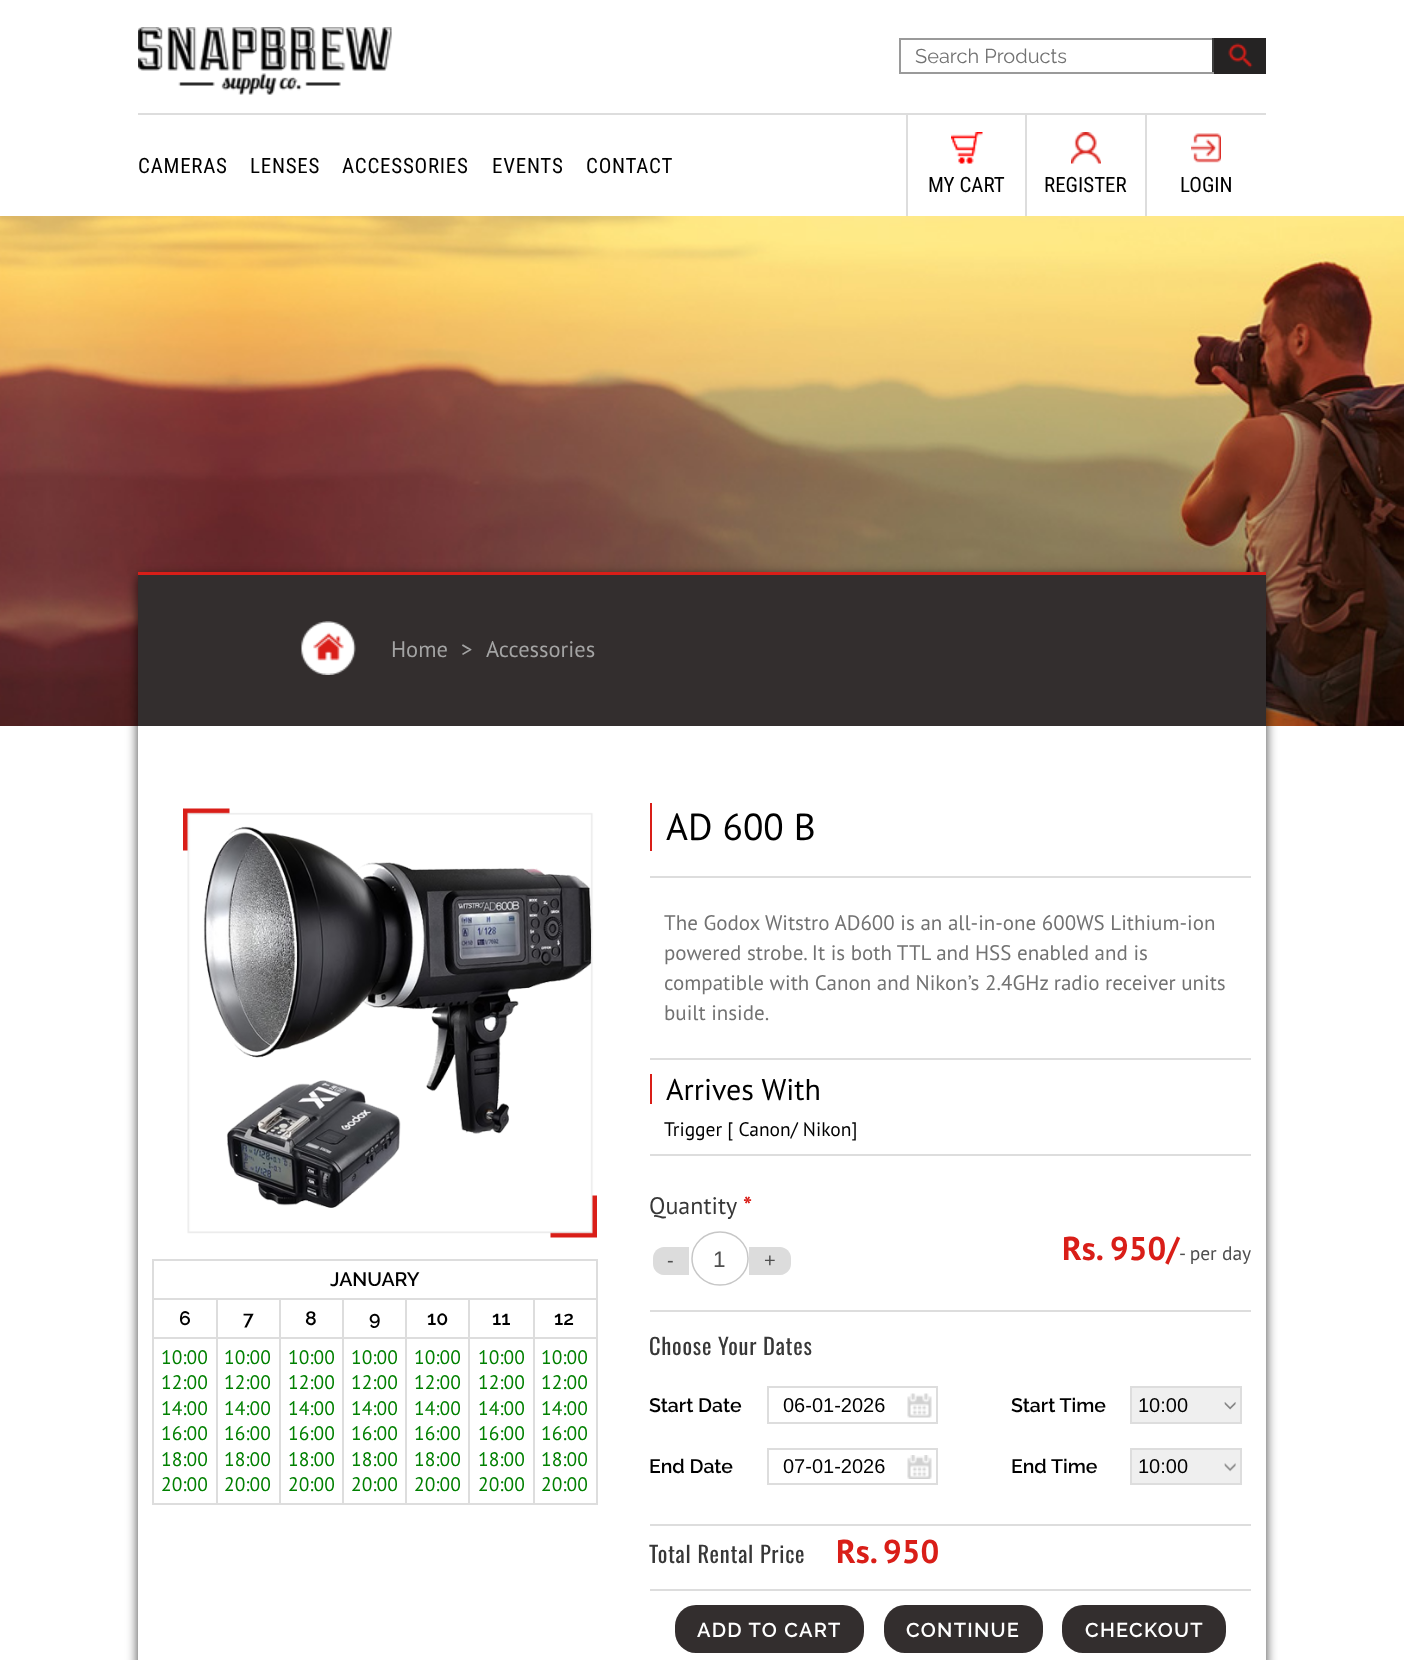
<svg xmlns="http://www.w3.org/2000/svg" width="1404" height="1660">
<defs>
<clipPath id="clip1"><path d="M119 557h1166v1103h-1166zm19 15h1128v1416h-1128z" clip-rule="evenodd"/></clipPath>
</defs>
<rect width="100%" height="100%" fill="#fff"/>
<rect x="138" y="113" width="1128" height="2" fill="#ddd"/>
<image x="138" y="27" width="254" height="68" href="media/1.png"/>
<rect x="899" y="38" width="315" height="2" fill="#9a9a9a"/>
<rect x="1212" y="38" width="2" height="36" fill="#3e3e3e"/>
<rect x="899" y="72" width="315" height="2" fill="#9a9a9a"/>
<rect x="899" y="38" width="2" height="36" fill="#9a9a9a"/>
<text x="915" y="63" style="font-family:Raleway;font-size:20px;fill:#727272">Search Products</text>
<rect x="1214" y="38" width="52" height="36" fill="#252323"/>
<image x="1228" y="43" width="25" height="25" href="media/2.png"/>
<text x="138" y="173" style="font-family:Roboto Condensed;font-size:21px;letter-spacing:0.75px;fill:#000">CAMERAS</text>
<text x="250" y="173" style="font-family:Roboto Condensed;font-size:21px;letter-spacing:0.75px;fill:#000">LENSES</text>
<text x="342" y="173" style="font-family:Roboto Condensed;font-size:21px;letter-spacing:0.75px;fill:#000">ACCESSORIES</text>
<text x="492" y="173" style="font-family:Roboto Condensed;font-size:21px;letter-spacing:0.75px;fill:#000">EVENTS</text>
<text x="586" y="173" style="font-family:Roboto Condensed;font-size:21px;letter-spacing:0.75px;fill:#000">CONTACT</text>
<rect x="1025" y="114" width="2" height="102" fill="#ddd"/>
<rect x="906" y="114" width="2" height="102" fill="#ddd"/>
<image x="951" y="132" width="32" height="32" href="media/3.png"/>
<text x="928" y="192" style="font-family:Roboto Condensed;font-size:21px;fill:#000">MY CART</text>
<rect x="1145" y="114" width="2" height="102" fill="#ddd"/>
<image x="1071" y="132" width="30" height="32" href="media/4.png"/>
<text x="1044" y="192" style="font-family:Roboto Condensed;font-size:21px;fill:#000">REGISTER</text>
<image x="1191" y="133" width="30" height="30" href="media/5.png"/>
<text x="1180" y="192" style="font-family:Roboto Condensed;font-size:21px;fill:#000">LOGIN</text>
<image x="0" y="216" width="1404" height="510" href="media/6.png"/>
<g clip-path="url(#clip1)">
<rect x="138" y="576" width="1128" height="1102" fill="#000000bf" filter="blur(6px)"/>
</g>
<rect x="138" y="572" width="1128" height="3" fill="#d91e18"/>
<rect x="138" y="575" width="1128" height="151" fill="#332e2e"/>
<image x="301" y="621" width="55" height="54" href="media/7.png"/>
<text x="391" y="657" style="font-family:PT Sans;font-size:22.5px;fill:#a4a4a4">Home</text>
<text x="461" y="657" style="font-family:PT Sans;font-size:22.5px;fill:#a4a4a4">&gt;</text>
<text x="486" y="657" style="font-family:PT Sans;font-size:22.5px;fill:#a4a4a4">Accessories</text>
<image x="183" y="808" width="414" height="430" href="media/8.png"/>
<image x="203" y="826" width="389" height="382" href="media/9.png"/>
<rect x="152" y="1259" width="445" height="2" fill="#ddd"/>
<rect x="596" y="1259" width="2" height="246" fill="#ddd"/>
<rect x="152" y="1503" width="445" height="2" fill="#ddd"/>
<rect x="152" y="1259" width="2" height="246" fill="#ddd"/>
<text x="330" y="1286" style="font-family:Raleway;font-size:19.5px;font-weight:600;fill:#000">JANUARY</text>
<rect x="152" y="1298" width="445" height="2" fill="#ddd"/>
<text x="179" y="1325" style="font-family:Raleway;font-size:19.5px;font-weight:600;fill:#000">6</text>
<text x="243" y="1325" style="font-family:Raleway;font-size:19.5px;font-weight:600;fill:#000">7</text>
<text x="305" y="1325" style="font-family:Raleway;font-size:19.5px;font-weight:600;fill:#000">8</text>
<text x="369" y="1325" style="font-family:Raleway;font-size:19.5px;font-weight:600;fill:#000">9</text>
<text x="427" y="1325" style="font-family:Raleway;font-size:19.5px;font-weight:600;fill:#000">10</text>
<text x="492" y="1325" style="font-family:Raleway;font-size:19.5px;font-weight:600;fill:#000">11</text>
<text x="554" y="1325" style="font-family:Raleway;font-size:19.5px;font-weight:600;fill:#000">12</text>
<rect x="152" y="1337" width="445" height="2" fill="#ddd"/>
<text x="161" y="1364" style="font-family:PT Sans;font-size:19.5px;fill:#008000">10:00</text>
<text x="161" y="1389" style="font-family:PT Sans;font-size:19.5px;fill:#008000">12:00</text>
<text x="161" y="1415" style="font-family:PT Sans;font-size:19.5px;fill:#008000">14:00</text>
<text x="161" y="1440" style="font-family:PT Sans;font-size:19.5px;fill:#008000">16:00</text>
<text x="161" y="1466" style="font-family:PT Sans;font-size:19.5px;fill:#008000">18:00</text>
<text x="161" y="1491" style="font-family:PT Sans;font-size:19.5px;fill:#008000">20:00</text>
<rect x="216" y="1298" width="2" height="207" fill="#ddd"/>
<text x="224" y="1364" style="font-family:PT Sans;font-size:19.5px;fill:#008000">10:00</text>
<text x="224" y="1389" style="font-family:PT Sans;font-size:19.5px;fill:#008000">12:00</text>
<text x="224" y="1415" style="font-family:PT Sans;font-size:19.5px;fill:#008000">14:00</text>
<text x="224" y="1440" style="font-family:PT Sans;font-size:19.5px;fill:#008000">16:00</text>
<text x="224" y="1466" style="font-family:PT Sans;font-size:19.5px;fill:#008000">18:00</text>
<text x="224" y="1491" style="font-family:PT Sans;font-size:19.5px;fill:#008000">20:00</text>
<rect x="279" y="1298" width="2" height="207" fill="#ddd"/>
<text x="288" y="1364" style="font-family:PT Sans;font-size:19.5px;fill:#008000">10:00</text>
<text x="288" y="1389" style="font-family:PT Sans;font-size:19.5px;fill:#008000">12:00</text>
<text x="288" y="1415" style="font-family:PT Sans;font-size:19.5px;fill:#008000">14:00</text>
<text x="288" y="1440" style="font-family:PT Sans;font-size:19.5px;fill:#008000">16:00</text>
<text x="288" y="1466" style="font-family:PT Sans;font-size:19.5px;fill:#008000">18:00</text>
<text x="288" y="1491" style="font-family:PT Sans;font-size:19.5px;fill:#008000">20:00</text>
<rect x="342" y="1298" width="2" height="207" fill="#ddd"/>
<text x="351" y="1364" style="font-family:PT Sans;font-size:19.5px;fill:#008000">10:00</text>
<text x="351" y="1389" style="font-family:PT Sans;font-size:19.5px;fill:#008000">12:00</text>
<text x="351" y="1415" style="font-family:PT Sans;font-size:19.5px;fill:#008000">14:00</text>
<text x="351" y="1440" style="font-family:PT Sans;font-size:19.5px;fill:#008000">16:00</text>
<text x="351" y="1466" style="font-family:PT Sans;font-size:19.5px;fill:#008000">18:00</text>
<text x="351" y="1491" style="font-family:PT Sans;font-size:19.5px;fill:#008000">20:00</text>
<rect x="405" y="1298" width="2" height="207" fill="#ddd"/>
<text x="414" y="1364" style="font-family:PT Sans;font-size:19.5px;fill:#008000">10:00</text>
<text x="414" y="1389" style="font-family:PT Sans;font-size:19.5px;fill:#008000">12:00</text>
<text x="414" y="1415" style="font-family:PT Sans;font-size:19.5px;fill:#008000">14:00</text>
<text x="414" y="1440" style="font-family:PT Sans;font-size:19.5px;fill:#008000">16:00</text>
<text x="414" y="1466" style="font-family:PT Sans;font-size:19.5px;fill:#008000">18:00</text>
<text x="414" y="1491" style="font-family:PT Sans;font-size:19.5px;fill:#008000">20:00</text>
<rect x="468" y="1298" width="2" height="207" fill="#ddd"/>
<text x="478" y="1364" style="font-family:PT Sans;font-size:19.5px;fill:#008000">10:00</text>
<text x="478" y="1389" style="font-family:PT Sans;font-size:19.5px;fill:#008000">12:00</text>
<text x="478" y="1415" style="font-family:PT Sans;font-size:19.5px;fill:#008000">14:00</text>
<text x="478" y="1440" style="font-family:PT Sans;font-size:19.5px;fill:#008000">16:00</text>
<text x="478" y="1466" style="font-family:PT Sans;font-size:19.5px;fill:#008000">18:00</text>
<text x="478" y="1491" style="font-family:PT Sans;font-size:19.5px;fill:#008000">20:00</text>
<rect x="533" y="1298" width="2" height="207" fill="#ddd"/>
<text x="541" y="1364" style="font-family:PT Sans;font-size:19.5px;fill:#008000">10:00</text>
<text x="541" y="1389" style="font-family:PT Sans;font-size:19.5px;fill:#008000">12:00</text>
<text x="541" y="1415" style="font-family:PT Sans;font-size:19.5px;fill:#008000">14:00</text>
<text x="541" y="1440" style="font-family:PT Sans;font-size:19.5px;fill:#008000">16:00</text>
<text x="541" y="1466" style="font-family:PT Sans;font-size:19.5px;fill:#008000">18:00</text>
<text x="541" y="1491" style="font-family:PT Sans;font-size:19.5px;fill:#008000">20:00</text>
<rect x="650" y="876" width="601" height="2" fill="#ddd"/>
<text x="666" y="840" style="font-family:PT Sans;font-size:37.5px;fill:#000">AD 600 B</text>
<rect x="650" y="803" width="2" height="48" fill="#d91e18"/>
<rect x="650" y="1058" width="601" height="2" fill="#ddd"/>
<text x="664" y="930" style="font-family:PT Sans;font-size:21px;fill:#727272">The Godox Witstro AD600 is an all-in-one 600WS Lithium-ion</text>
<text x="664" y="960" style="font-family:PT Sans;font-size:21px;fill:#727272">powered strobe. It is both TTL and HSS enabled and is</text>
<text x="664" y="990" style="font-family:PT Sans;font-size:21px;fill:#727272">compatible with Canon and Nikon’s 2.4GHz radio receiver units</text>
<text x="664" y="1020" style="font-family:PT Sans;font-size:21px;fill:#727272">built inside.</text>
<rect x="650" y="1154" width="601" height="2" fill="#ddd"/>
<rect x="650" y="1074" width="2" height="30" fill="#d91e18"/>
<text x="666" y="1100" style="font-family:PT Sans;font-size:30px;fill:#000">Arrives With</text>
<text x="664" y="1136" style="font-family:PT Sans;font-size:19.5px;fill:#000">Trigger [ Canon/ Nikon]</text>
<rect x="650" y="1310" width="601" height="2" fill="#ddd"/>
<text x="649" y="1214" style="font-family:PT Sans;font-size:24px;fill:#373737">Quantity</text>
<text x="743" y="1214" style="font-family:PT Sans;font-size:24px;font-weight:bold;fill:#d91e18">*</text>
<path d="M664 1247h25v28h-25c-6 0-11-5-11-11v-6c0-6 5-11 11-11z" fill="#dcdcdc"/>
<text x="667" y="1267" style="font-family:Liberation Sans;font-size:20px;fill:#4f4f4f">-</text>
<path d="M720 1232c15.5 0 28 12 28 26.5c0 14.5-12.5 26.5-28 26.5c-15.5 0-28-12-28-26.5c0-14.5 12.5-26.5 28-26.5z" fill="none" stroke="#c7c7c7" stroke-width="1.5"/>
<text x="713" y="1267" style="font-family:Liberation Sans;font-size:22.5px;fill:#4f4f4f">1</text>
<path d="M749 1247h31c6 0 11 5 11 11v6c0 6-5 11-11 11h-31z" fill="#dcdcdc"/>
<text x="764" y="1267" style="font-family:Liberation Sans;font-size:20px;fill:#4f4f4f">+</text>
<text x="1062" y="1260" style="font-family:PT Sans;font-size:33px;font-weight:bold;fill:#d91e18">Rs. 950/</text>
<text x="1179" y="1260" style="font-family:PT Sans;font-size:19.5px;fill:#4f4f4f">- per day</text>
<rect x="650" y="1524" width="601" height="2" fill="#ddd"/>
<text x="649" y="1355" style="font-family:Oswald;font-size:22.5px;letter-spacing:0.75px;fill:#373737">Choose Your Dates</text>
<text x="649" y="1412" style="font-family:Raleway;font-size:19.5px;font-weight:600;fill:#000">Start Date</text>
<image x="907" y="1393" width="25" height="25" href="media/10.png"/>
<rect x="768" y="1387" width="169" height="36" fill="none" stroke="#ddd" stroke-width="2"/>
<text x="783" y="1412" style="font-family:Liberation Sans;font-size:20px;fill:#000">06-01-2026</text>
<text x="1011" y="1412" style="font-family:Raleway;font-size:19.5px;font-weight:600;fill:#000">Start Time</text>
<rect x="1132" y="1388" width="108" height="34" fill="#efefef"/>
<image x="1224" y="1402" width="12" height="8" href="media/11.png"/>
<rect x="1131" y="1387" width="110" height="36" fill="none" stroke="#ddd" stroke-width="2"/>
<text x="1138" y="1412" style="font-family:Liberation Sans;font-size:20px;fill:#000">10:00</text>
<text x="649" y="1473" style="font-family:Raleway;font-size:19.5px;font-weight:600;fill:#000">End Date</text>
<image x="907" y="1455" width="25" height="24" href="media/12.png"/>
<rect x="768" y="1449" width="169" height="35" fill="none" stroke="#ddd" stroke-width="2"/>
<text x="783" y="1473" style="font-family:Liberation Sans;font-size:20px;fill:#000">07-01-2026</text>
<text x="1011" y="1473" style="font-family:Raleway;font-size:19.5px;font-weight:600;fill:#000">End Time</text>
<rect x="1132" y="1450" width="108" height="33" fill="#efefef"/>
<image x="1224" y="1463" width="12" height="9" href="media/13.png"/>
<rect x="1131" y="1449" width="110" height="35" fill="none" stroke="#ddd" stroke-width="2"/>
<text x="1138" y="1473" style="font-family:Liberation Sans;font-size:20px;fill:#000">10:00</text>
<rect x="650" y="1589" width="601" height="2" fill="#ddd"/>
<text x="649" y="1563" style="font-family:Oswald;font-size:22.5px;letter-spacing:0.75px;fill:#373737">Total Rental Price</text>
<text x="836" y="1563" style="font-family:PT Sans;font-size:33px;font-weight:bold;fill:#d91e18">Rs.</text>
<text x="883" y="1563" style="font-family:PT Sans;font-size:33px;font-weight:bold;fill:#d91e18">950</text>
<rect x="675" y="1605" width="189" height="48" rx="21" fill="#332e2e"/>
<text x="697" y="1637" style="font-family:Raleway;font-size:20px;font-weight:600;letter-spacing:1.25px;fill:#fff">ADD TO CART</text>
<rect x="884" y="1605" width="159" height="48" rx="21" fill="#332e2e"/>
<text x="906" y="1637" style="font-family:Raleway;font-size:20px;font-weight:600;letter-spacing:1.25px;fill:#fff">CONTINUE</text>
<rect x="1062" y="1605" width="164" height="48" rx="21" fill="#332e2e"/>
<text x="1085" y="1637" style="font-family:Raleway;font-size:20px;font-weight:600;letter-spacing:1.25px;fill:#fff">CHECKOUT</text>
</svg>
